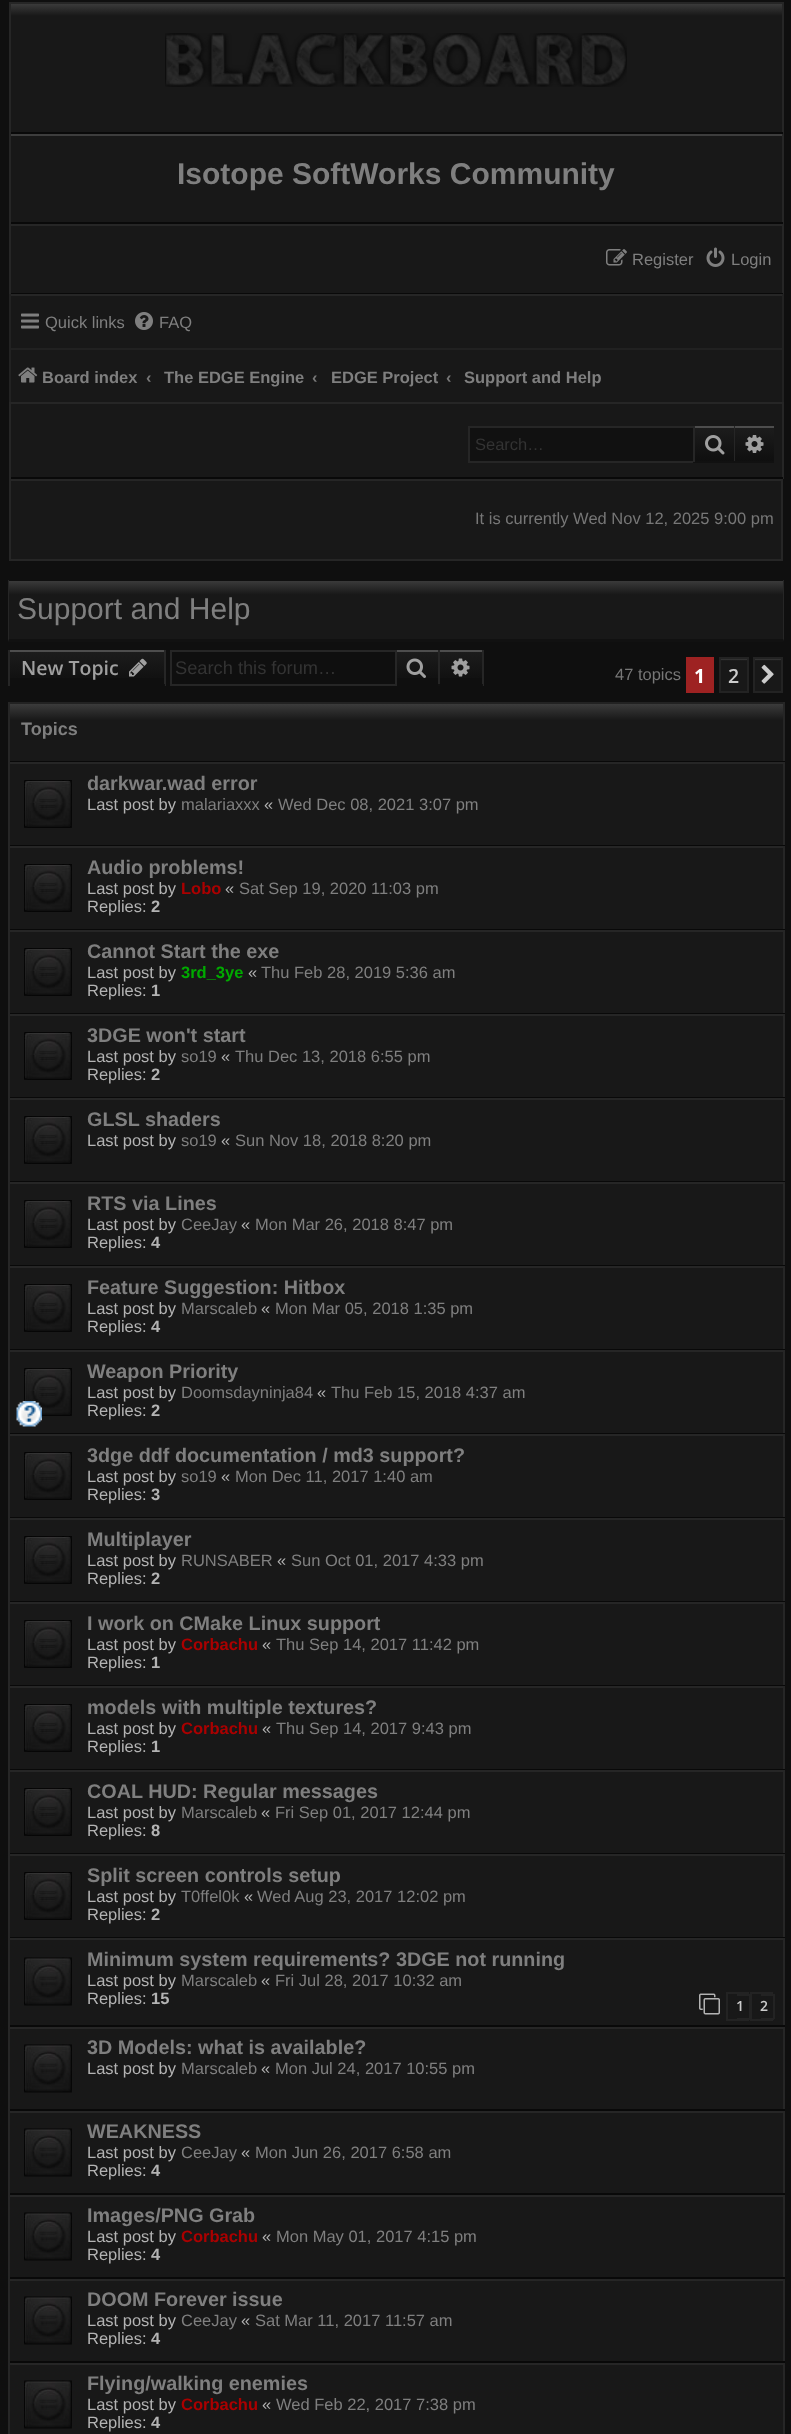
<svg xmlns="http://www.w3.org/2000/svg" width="791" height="2434">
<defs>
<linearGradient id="g1" gradientUnits="userSpaceOnUse" x1="396" y1="3" x2="396" y2="132"><stop offset="0" stop-color="#3d3d3d"/><stop offset="0.1" stop-color="#181818"/><stop offset="1" stop-color="#181818"/></linearGradient>
<linearGradient id="g2" gradientUnits="userSpaceOnUse" x1="714" y1="428" x2="714" y2="461"><stop offset="0" stop-color="#1c1c1c"/><stop offset="1" stop-color="#0f0f0f"/></linearGradient>
<linearGradient id="g3" gradientUnits="userSpaceOnUse" x1="755" y1="428" x2="755" y2="461"><stop offset="0" stop-color="#1c1c1c"/><stop offset="1" stop-color="#0f0f0f"/></linearGradient>
<linearGradient id="g4" gradientUnits="userSpaceOnUse" x1="396" y1="580" x2="396" y2="639"><stop offset="0" stop-color="#3d3d3d"/><stop offset="0.25" stop-color="#181818"/><stop offset="1" stop-color="#181818"/></linearGradient>
<linearGradient id="g5" gradientUnits="userSpaceOnUse" x1="86" y1="651" x2="86" y2="684"><stop offset="0" stop-color="#1c1c1c"/><stop offset="1" stop-color="#0f0f0f"/></linearGradient>
<linearGradient id="g6" gradientUnits="userSpaceOnUse" x1="417" y1="651" x2="417" y2="684"><stop offset="0" stop-color="#1c1c1c"/><stop offset="1" stop-color="#0f0f0f"/></linearGradient>
<linearGradient id="g7" gradientUnits="userSpaceOnUse" x1="461" y1="651" x2="461" y2="684"><stop offset="0" stop-color="#1c1c1c"/><stop offset="1" stop-color="#0f0f0f"/></linearGradient>
<linearGradient id="g8" gradientUnits="userSpaceOnUse" x1="734" y1="659" x2="734" y2="692"><stop offset="0" stop-color="#3d3d3d"/><stop offset="0.05" stop-color="#181818"/><stop offset="1" stop-color="#181818"/></linearGradient>
<linearGradient id="g9" gradientUnits="userSpaceOnUse" x1="768" y1="659" x2="768" y2="692"><stop offset="0" stop-color="#3d3d3d"/><stop offset="0.05" stop-color="#181818"/><stop offset="1" stop-color="#181818"/></linearGradient>
<linearGradient id="g10" gradientUnits="userSpaceOnUse" x1="396" y1="703" x2="396" y2="761"><stop offset="0" stop-color="#3d3d3d"/><stop offset="0.3" stop-color="#181818"/><stop offset="1" stop-color="#181818"/></linearGradient>
</defs>
<rect width="100%" height="100%" fill="#0f0f0f"/>
<rect x="11" y="4" width="771" height="128" fill="url(#g1)"/>
<rect x="9" y="2" width="774" height="2" fill="#262626"/>
<rect x="782" y="2" width="2" height="132" fill="#262626"/>
<rect x="9" y="132" width="774" height="2" fill="#090909"/>
<rect x="9" y="2" width="2" height="132" fill="#262626"/>
<image x="165" y="33" width="462" height="54" href="media/1.png"/>
<rect x="11" y="136" width="771" height="86" fill="#181818"/>
<rect x="9" y="134" width="774" height="2" fill="#3d3d3d"/>
<rect x="782" y="134" width="2" height="90" fill="#262626"/>
<rect x="9" y="222" width="774" height="2" fill="#090909"/>
<rect x="9" y="134" width="2" height="90" fill="#262626"/>
<text x="177" y="184" style="font-family:Liberation Sans;font-size:30px;font-weight:bold;fill:#7f7f7f">Isotope SoftWorks Community</text>
<rect x="11" y="226" width="771" height="67" fill="#181818"/>
<rect x="9" y="224" width="774" height="2" fill="#262626"/>
<rect x="782" y="224" width="2" height="70" fill="#262626"/>
<rect x="9" y="293" width="774" height="1" fill="#090909"/>
<rect x="9" y="224" width="2" height="70" fill="#262626"/>
<image x="606" y="249" width="21" height="17" href="media/2.png"/>
<text x="632" y="265" style="font-family:Liberation Sans;font-size:16.5px;fill:#7f7f7f">Register</text>
<image x="706" y="247" width="19" height="20" href="media/3.png"/>
<text x="731" y="265" style="font-family:Liberation Sans;font-size:16.5px;fill:#7f7f7f">Login</text>
<rect x="11" y="296" width="771" height="106" fill="#181818"/>
<rect x="9" y="294" width="774" height="2" fill="#262626"/>
<rect x="782" y="294" width="2" height="110" fill="#222"/>
<rect x="9" y="294" width="2" height="110" fill="#222"/>
<image x="21" y="313" width="18" height="16" href="media/4.png"/>
<text x="45" y="328" style="font-family:Liberation Sans;font-size:16.5px;fill:#7f7f7f">Quick links</text>
<image x="135" y="312" width="18" height="18" href="media/5.png"/>
<text x="159" y="328" style="font-family:Liberation Sans;font-size:16.5px;fill:#7f7f7f">FAQ</text>
<rect x="11" y="348" width="771" height="2" fill="#212121"/>
<image x="18" y="367" width="20" height="16" href="media/6.png"/>
<text x="42" y="383" style="font-family:Liberation Sans;font-size:16.5px;font-weight:bold;fill:#7f7f7f">Board index</text>
<text x="146" y="383" style="font-family:Liberation Sans;font-size:16.5px;font-weight:bold;fill:#777">‹</text>
<text x="164" y="383" style="font-family:Liberation Sans;font-size:16.5px;font-weight:bold;fill:#7f7f7f">The EDGE Engine</text>
<text x="312" y="383" style="font-family:Liberation Sans;font-size:16.5px;font-weight:bold;fill:#777">‹</text>
<text x="331" y="383" style="font-family:Liberation Sans;font-size:16.5px;font-weight:bold;fill:#7f7f7f">EDGE Project</text>
<text x="446" y="383" style="font-family:Liberation Sans;font-size:16.5px;font-weight:bold;fill:#777">‹</text>
<text x="464" y="383" style="font-family:Liberation Sans;font-size:16.5px;font-weight:bold;fill:#7f7f7f">Support and Help</text>
<rect x="11" y="404" width="771" height="73" fill="#181818"/>
<rect x="9" y="402" width="774" height="2" fill="#262626"/>
<rect x="782" y="402" width="2" height="77" fill="#262626"/>
<rect x="9" y="477" width="774" height="2" fill="#090909"/>
<rect x="9" y="402" width="2" height="77" fill="#262626"/>
<rect x="695" y="428" width="39" height="33" fill="url(#g2)"/>
<rect x="693" y="426" width="81" height="2" fill="#4d4d4d"/>
<rect x="734" y="426" width="1" height="36" fill="#262626"/>
<rect x="693" y="461" width="81" height="2" fill="#111"/>
<rect x="693" y="426" width="2" height="36" fill="#262626"/>
<image x="705" y="435" width="20" height="20" href="media/7.png"/>
<rect x="470" y="428" width="223" height="33" fill="#111"/>
<rect x="468" y="426" width="225" height="2" fill="#262626"/>
<rect x="468" y="461" width="225" height="2" fill="#262626"/>
<rect x="468" y="426" width="2" height="36" fill="#262626"/>
<text x="475" y="450" style="font-family:Liberation Sans;font-size:16.5px;fill:#333">Search…</text>
<rect x="735" y="428" width="39" height="33" fill="url(#g3)"/>
<image x="745" y="435" width="19" height="18" href="media/8.png"/>
<rect x="10" y="480" width="772" height="80" fill="#181818" stroke="#262626" stroke-width="2"/>
<text x="475" y="524" style="font-family:Liberation Sans;font-size:16.5px;fill:#777">It is currently Wed Nov 12, 2025 9:00 pm</text>
<rect x="9" y="581" width="774" height="58" fill="url(#g4)"/>
<path d="M784 580v62l-1-3v-59z" fill="#262626"/>
<path d="M784 642h-776l1-3h774z" fill="#111"/>
<path d="M8 642v-62h1v59z" fill="#262626"/>
<text x="17" y="619" style="font-family:Liberation Sans;font-size:30px;fill:#7f7f7f">Support and Help</text>
<rect x="10" y="652" width="154" height="26" fill="url(#g5)"/>
<rect x="8" y="650" width="157" height="2" fill="#4d4d4d"/>
<rect x="164" y="650" width="2" height="36" fill="#262626"/>
<rect x="164" y="684" width="1" height="2" fill="#111"/>
<rect x="8" y="650" width="2" height="36" fill="#262626"/>
<text x="21" y="675" style="font-family:Open Sans;font-size:19.5px;font-weight:600;fill:#a0a0a0">New Topic</text>
<image x="129" y="658" width="18" height="19" href="media/9.png"/>
<rect x="397" y="652" width="41" height="26" fill="url(#g6)"/>
<rect x="395" y="650" width="88" height="2" fill="#4d4d4d"/>
<rect x="438" y="650" width="2" height="36" fill="#262626"/>
<rect x="438" y="684" width="2" height="2" fill="#111"/>
<rect x="395" y="650" width="2" height="36" fill="#262626"/>
<image x="406" y="658" width="20" height="20" href="media/10.png"/>
<rect x="170" y="650" width="225" height="2" fill="#262626"/>
<rect x="170" y="684" width="225" height="2" fill="#262626"/>
<rect x="170" y="650" width="2" height="36" fill="#262626"/>
<text x="175" y="674" style="font-family:Liberation Sans;font-size:18.25px;fill:#333">Search this forum…</text>
<rect x="440" y="652" width="42" height="26" fill="url(#g7)"/>
<rect x="482" y="650" width="2" height="36" fill="#262626"/>
<rect x="482" y="684" width="1" height="2" fill="#111"/>
<image x="451" y="658" width="19" height="19" href="media/11.png"/>
<text x="615" y="680" style="font-family:Liberation Sans;font-size:16.5px;fill:#777">47 topics</text>
<rect x="686" y="657" width="28" height="36" fill="#9e2222"/>
<text x="694" y="683" style="font-family:Open Sans;font-size:19.5px;font-weight:bold;fill:#fff">1</text>
<rect x="721" y="659" width="26" height="32" fill="url(#g8)"/>
<rect x="720" y="658" width="28" height="34" fill="none" stroke="#232323" stroke-width="2"/>
<text x="728" y="683" style="font-family:Open Sans;font-size:19.5px;font-weight:600;fill:#ccc">2</text>
<rect x="755" y="659" width="26" height="32" fill="url(#g9)"/>
<rect x="754" y="658" width="28" height="34" fill="none" stroke="#232323" stroke-width="2"/>
<image x="761" y="664" width="13" height="20" href="media/12.png"/>
<rect x="10" y="704" width="773" height="57" fill="url(#g10)"/>
<rect x="8" y="702" width="777" height="2" fill="#222"/>
<rect x="783" y="702" width="2" height="60" fill="#262626"/>
<rect x="8" y="761" width="777" height="1" fill="#090909"/>
<rect x="8" y="702" width="2" height="60" fill="#262626"/>
<text x="21" y="735" style="font-family:Liberation Sans;font-size:18px;font-weight:bold;fill:#7f7f7f">Topics</text>
<rect x="10" y="764" width="773" height="81" fill="#181818"/>
<rect x="8" y="762" width="777" height="2" fill="#262626"/>
<rect x="783" y="762" width="2" height="84" fill="#262626"/>
<rect x="8" y="845" width="777" height="1" fill="#090909"/>
<rect x="8" y="762" width="2" height="84" fill="#262626"/>
<image x="24" y="780" width="48" height="48" href="media/13.png"/>
<text x="87" y="790" style="font-family:Liberation Sans;font-size:19.8px;font-weight:bold;fill:#7f7f7f">darkwar.wad error</text>
<text x="87" y="810" style="font-family:Liberation Sans;font-size:16.5px;fill:#b3b3b3">Last post by</text>
<text x="181" y="810" style="font-family:Liberation Sans;font-size:16.5px;fill:#7f7f7f">malariaxxx</text>
<text x="264" y="810" style="font-family:Liberation Sans;font-size:16.5px;fill:#b3b3b3">«</text>
<text x="278" y="810" style="font-family:Liberation Sans;font-size:16.5px;fill:#7f7f7f">Wed Dec 08, 2021 3:07 pm</text>
<rect x="10" y="848" width="773" height="81" fill="#181818"/>
<rect x="8" y="846" width="777" height="2" fill="#262626"/>
<rect x="783" y="846" width="2" height="84" fill="#262626"/>
<rect x="8" y="929" width="777" height="1" fill="#090909"/>
<rect x="8" y="846" width="2" height="84" fill="#262626"/>
<image x="24" y="864" width="48" height="48" href="media/13.png"/>
<text x="87" y="874" style="font-family:Liberation Sans;font-size:19.8px;font-weight:bold;fill:#7f7f7f">Audio problems!</text>
<text x="87" y="894" style="font-family:Liberation Sans;font-size:16.5px;fill:#b3b3b3">Last post by</text>
<text x="181" y="894" style="font-family:Liberation Sans;font-size:16.5px;font-weight:bold;fill:#a00">Lobo</text>
<text x="225" y="894" style="font-family:Liberation Sans;font-size:16.5px;fill:#b3b3b3">«</text>
<text x="239" y="894" style="font-family:Liberation Sans;font-size:16.5px;fill:#7f7f7f">Sat Sep 19, 2020 11:03 pm</text>
<text x="87" y="912" style="font-family:Liberation Sans;font-size:16.5px;fill:#b3b3b3">Replies:</text>
<text x="151" y="912" style="font-family:Liberation Sans;font-size:16.5px;font-weight:bold;fill:#b3b3b3">2</text>
<rect x="10" y="932" width="773" height="81" fill="#181818"/>
<rect x="8" y="930" width="777" height="2" fill="#262626"/>
<rect x="783" y="930" width="2" height="84" fill="#262626"/>
<rect x="8" y="1013" width="777" height="1" fill="#090909"/>
<rect x="8" y="930" width="2" height="84" fill="#262626"/>
<image x="24" y="948" width="48" height="48" href="media/13.png"/>
<text x="87" y="958" style="font-family:Liberation Sans;font-size:19.8px;font-weight:bold;fill:#7f7f7f">Cannot Start the exe</text>
<text x="87" y="978" style="font-family:Liberation Sans;font-size:16.5px;fill:#b3b3b3">Last post by</text>
<text x="181" y="978" style="font-family:Liberation Sans;font-size:16.5px;font-weight:bold;fill:#0a0">3rd_3ye</text>
<text x="248" y="978" style="font-family:Liberation Sans;font-size:16.5px;fill:#b3b3b3">«</text>
<text x="261" y="978" style="font-family:Liberation Sans;font-size:16.5px;fill:#7f7f7f">Thu Feb 28, 2019 5:36 am</text>
<text x="87" y="996" style="font-family:Liberation Sans;font-size:16.5px;fill:#b3b3b3">Replies:</text>
<text x="151" y="996" style="font-family:Liberation Sans;font-size:16.5px;font-weight:bold;fill:#b3b3b3">1</text>
<rect x="10" y="1016" width="773" height="81" fill="#181818"/>
<rect x="8" y="1014" width="777" height="2" fill="#262626"/>
<rect x="783" y="1014" width="2" height="84" fill="#262626"/>
<rect x="8" y="1097" width="777" height="1" fill="#090909"/>
<rect x="8" y="1014" width="2" height="84" fill="#262626"/>
<image x="24" y="1032" width="48" height="48" href="media/13.png"/>
<text x="87" y="1042" style="font-family:Liberation Sans;font-size:19.8px;font-weight:bold;fill:#7f7f7f">3DGE won't start</text>
<text x="87" y="1062" style="font-family:Liberation Sans;font-size:16.5px;fill:#b3b3b3">Last post by</text>
<text x="181" y="1062" style="font-family:Liberation Sans;font-size:16.5px;fill:#7f7f7f">so19</text>
<text x="221" y="1062" style="font-family:Liberation Sans;font-size:16.5px;fill:#b3b3b3">«</text>
<text x="235" y="1062" style="font-family:Liberation Sans;font-size:16.5px;fill:#7f7f7f">Thu Dec 13, 2018 6:55 pm</text>
<text x="87" y="1080" style="font-family:Liberation Sans;font-size:16.5px;fill:#b3b3b3">Replies:</text>
<text x="151" y="1080" style="font-family:Liberation Sans;font-size:16.5px;font-weight:bold;fill:#b3b3b3">2</text>
<rect x="10" y="1100" width="773" height="81" fill="#181818"/>
<rect x="8" y="1098" width="777" height="2" fill="#262626"/>
<rect x="783" y="1098" width="2" height="84" fill="#262626"/>
<rect x="8" y="1181" width="777" height="1" fill="#090909"/>
<rect x="8" y="1098" width="2" height="84" fill="#262626"/>
<image x="24" y="1116" width="48" height="48" href="media/13.png"/>
<text x="87" y="1126" style="font-family:Liberation Sans;font-size:19.8px;font-weight:bold;fill:#7f7f7f">GLSL shaders</text>
<text x="87" y="1146" style="font-family:Liberation Sans;font-size:16.5px;fill:#b3b3b3">Last post by</text>
<text x="181" y="1146" style="font-family:Liberation Sans;font-size:16.5px;fill:#7f7f7f">so19</text>
<text x="221" y="1146" style="font-family:Liberation Sans;font-size:16.5px;fill:#b3b3b3">«</text>
<text x="235" y="1146" style="font-family:Liberation Sans;font-size:16.5px;fill:#7f7f7f">Sun Nov 18, 2018 8:20 pm</text>
<rect x="10" y="1184" width="773" height="81" fill="#181818"/>
<rect x="8" y="1182" width="777" height="2" fill="#262626"/>
<rect x="783" y="1182" width="2" height="84" fill="#262626"/>
<rect x="8" y="1265" width="777" height="1" fill="#090909"/>
<rect x="8" y="1182" width="2" height="84" fill="#262626"/>
<image x="24" y="1200" width="48" height="48" href="media/13.png"/>
<text x="87" y="1210" style="font-family:Liberation Sans;font-size:19.8px;font-weight:bold;fill:#7f7f7f">RTS via Lines</text>
<text x="87" y="1230" style="font-family:Liberation Sans;font-size:16.5px;fill:#b3b3b3">Last post by</text>
<text x="181" y="1230" style="font-family:Liberation Sans;font-size:16.5px;fill:#7f7f7f">CeeJay</text>
<text x="241" y="1230" style="font-family:Liberation Sans;font-size:16.5px;fill:#b3b3b3">«</text>
<text x="255" y="1230" style="font-family:Liberation Sans;font-size:16.5px;fill:#7f7f7f">Mon Mar 26, 2018 8:47 pm</text>
<text x="87" y="1248" style="font-family:Liberation Sans;font-size:16.5px;fill:#b3b3b3">Replies:</text>
<text x="151" y="1248" style="font-family:Liberation Sans;font-size:16.5px;font-weight:bold;fill:#b3b3b3">4</text>
<rect x="10" y="1268" width="773" height="81" fill="#181818"/>
<rect x="8" y="1266" width="777" height="2" fill="#262626"/>
<rect x="783" y="1266" width="2" height="84" fill="#262626"/>
<rect x="8" y="1349" width="777" height="1" fill="#090909"/>
<rect x="8" y="1266" width="2" height="84" fill="#262626"/>
<image x="24" y="1284" width="48" height="48" href="media/13.png"/>
<text x="87" y="1294" style="font-family:Liberation Sans;font-size:19.8px;font-weight:bold;fill:#7f7f7f">Feature Suggestion: Hitbox</text>
<text x="87" y="1314" style="font-family:Liberation Sans;font-size:16.5px;fill:#b3b3b3">Last post by</text>
<text x="181" y="1314" style="font-family:Liberation Sans;font-size:16.5px;fill:#7f7f7f">Marscaleb</text>
<text x="261" y="1314" style="font-family:Liberation Sans;font-size:16.5px;fill:#b3b3b3">«</text>
<text x="275" y="1314" style="font-family:Liberation Sans;font-size:16.5px;fill:#7f7f7f">Mon Mar 05, 2018 1:35 pm</text>
<text x="87" y="1332" style="font-family:Liberation Sans;font-size:16.5px;fill:#b3b3b3">Replies:</text>
<text x="151" y="1332" style="font-family:Liberation Sans;font-size:16.5px;font-weight:bold;fill:#b3b3b3">4</text>
<rect x="10" y="1352" width="773" height="81" fill="#181818"/>
<rect x="8" y="1350" width="777" height="2" fill="#262626"/>
<rect x="783" y="1350" width="2" height="84" fill="#262626"/>
<rect x="8" y="1433" width="777" height="1" fill="#090909"/>
<rect x="8" y="1350" width="2" height="84" fill="#262626"/>
<image x="24" y="1368" width="48" height="48" href="media/13.png"/>
<image x="16" y="1401" width="26" height="26" href="media/14.png"/>
<text x="87" y="1378" style="font-family:Liberation Sans;font-size:19.8px;font-weight:bold;fill:#7f7f7f">Weapon Priority</text>
<text x="87" y="1398" style="font-family:Liberation Sans;font-size:16.5px;fill:#b3b3b3">Last post by</text>
<text x="181" y="1398" style="font-family:Liberation Sans;font-size:16.5px;fill:#7f7f7f">Doomsdayninja84</text>
<text x="317" y="1398" style="font-family:Liberation Sans;font-size:16.5px;fill:#b3b3b3">«</text>
<text x="331" y="1398" style="font-family:Liberation Sans;font-size:16.5px;fill:#7f7f7f">Thu Feb 15, 2018 4:37 am</text>
<text x="87" y="1416" style="font-family:Liberation Sans;font-size:16.5px;fill:#b3b3b3">Replies:</text>
<text x="151" y="1416" style="font-family:Liberation Sans;font-size:16.5px;font-weight:bold;fill:#b3b3b3">2</text>
<rect x="10" y="1436" width="773" height="81" fill="#181818"/>
<rect x="8" y="1434" width="777" height="2" fill="#262626"/>
<rect x="783" y="1434" width="2" height="84" fill="#262626"/>
<rect x="8" y="1517" width="777" height="1" fill="#090909"/>
<rect x="8" y="1434" width="2" height="84" fill="#262626"/>
<image x="24" y="1452" width="48" height="48" href="media/13.png"/>
<text x="87" y="1462" style="font-family:Liberation Sans;font-size:19.8px;font-weight:bold;fill:#7f7f7f">3dge ddf documentation / md3 support?</text>
<text x="87" y="1482" style="font-family:Liberation Sans;font-size:16.5px;fill:#b3b3b3">Last post by</text>
<text x="181" y="1482" style="font-family:Liberation Sans;font-size:16.5px;fill:#7f7f7f">so19</text>
<text x="221" y="1482" style="font-family:Liberation Sans;font-size:16.5px;fill:#b3b3b3">«</text>
<text x="235" y="1482" style="font-family:Liberation Sans;font-size:16.5px;fill:#7f7f7f">Mon Dec 11, 2017 1:40 am</text>
<text x="87" y="1500" style="font-family:Liberation Sans;font-size:16.5px;fill:#b3b3b3">Replies:</text>
<text x="151" y="1500" style="font-family:Liberation Sans;font-size:16.5px;font-weight:bold;fill:#b3b3b3">3</text>
<rect x="10" y="1520" width="773" height="81" fill="#181818"/>
<rect x="8" y="1518" width="777" height="2" fill="#262626"/>
<rect x="783" y="1518" width="2" height="84" fill="#262626"/>
<rect x="8" y="1601" width="777" height="1" fill="#090909"/>
<rect x="8" y="1518" width="2" height="84" fill="#262626"/>
<image x="24" y="1536" width="48" height="48" href="media/13.png"/>
<text x="87" y="1546" style="font-family:Liberation Sans;font-size:19.8px;font-weight:bold;fill:#7f7f7f">Multiplayer</text>
<text x="87" y="1566" style="font-family:Liberation Sans;font-size:16.5px;fill:#b3b3b3">Last post by</text>
<text x="181" y="1566" style="font-family:Liberation Sans;font-size:16.5px;fill:#7f7f7f">RUNSABER</text>
<text x="277" y="1566" style="font-family:Liberation Sans;font-size:16.5px;fill:#b3b3b3">«</text>
<text x="291" y="1566" style="font-family:Liberation Sans;font-size:16.5px;fill:#7f7f7f">Sun Oct 01, 2017 4:33 pm</text>
<text x="87" y="1584" style="font-family:Liberation Sans;font-size:16.5px;fill:#b3b3b3">Replies:</text>
<text x="151" y="1584" style="font-family:Liberation Sans;font-size:16.5px;font-weight:bold;fill:#b3b3b3">2</text>
<rect x="10" y="1604" width="773" height="81" fill="#181818"/>
<rect x="8" y="1602" width="777" height="2" fill="#262626"/>
<rect x="783" y="1602" width="2" height="84" fill="#262626"/>
<rect x="8" y="1685" width="777" height="1" fill="#090909"/>
<rect x="8" y="1602" width="2" height="84" fill="#262626"/>
<image x="24" y="1620" width="48" height="48" href="media/13.png"/>
<text x="87" y="1630" style="font-family:Liberation Sans;font-size:19.8px;font-weight:bold;fill:#7f7f7f">I work on CMake Linux support</text>
<text x="87" y="1650" style="font-family:Liberation Sans;font-size:16.5px;fill:#b3b3b3">Last post by</text>
<text x="181" y="1650" style="font-family:Liberation Sans;font-size:16.5px;font-weight:bold;fill:#a00">Corbachu</text>
<text x="262" y="1650" style="font-family:Liberation Sans;font-size:16.5px;fill:#b3b3b3">«</text>
<text x="276" y="1650" style="font-family:Liberation Sans;font-size:16.5px;fill:#7f7f7f">Thu Sep 14, 2017 11:42 pm</text>
<text x="87" y="1668" style="font-family:Liberation Sans;font-size:16.5px;fill:#b3b3b3">Replies:</text>
<text x="151" y="1668" style="font-family:Liberation Sans;font-size:16.5px;font-weight:bold;fill:#b3b3b3">1</text>
<rect x="10" y="1688" width="773" height="81" fill="#181818"/>
<rect x="8" y="1686" width="777" height="2" fill="#262626"/>
<rect x="783" y="1686" width="2" height="84" fill="#262626"/>
<rect x="8" y="1769" width="777" height="1" fill="#090909"/>
<rect x="8" y="1686" width="2" height="84" fill="#262626"/>
<image x="24" y="1704" width="48" height="48" href="media/13.png"/>
<text x="87" y="1714" style="font-family:Liberation Sans;font-size:19.8px;font-weight:bold;fill:#7f7f7f">models with multiple textures?</text>
<text x="87" y="1734" style="font-family:Liberation Sans;font-size:16.5px;fill:#b3b3b3">Last post by</text>
<text x="181" y="1734" style="font-family:Liberation Sans;font-size:16.5px;font-weight:bold;fill:#a00">Corbachu</text>
<text x="262" y="1734" style="font-family:Liberation Sans;font-size:16.5px;fill:#b3b3b3">«</text>
<text x="276" y="1734" style="font-family:Liberation Sans;font-size:16.5px;fill:#7f7f7f">Thu Sep 14, 2017 9:43 pm</text>
<text x="87" y="1752" style="font-family:Liberation Sans;font-size:16.5px;fill:#b3b3b3">Replies:</text>
<text x="151" y="1752" style="font-family:Liberation Sans;font-size:16.5px;font-weight:bold;fill:#b3b3b3">1</text>
<rect x="10" y="1772" width="773" height="81" fill="#181818"/>
<rect x="8" y="1770" width="777" height="2" fill="#262626"/>
<rect x="783" y="1770" width="2" height="84" fill="#262626"/>
<rect x="8" y="1853" width="777" height="1" fill="#090909"/>
<rect x="8" y="1770" width="2" height="84" fill="#262626"/>
<image x="24" y="1788" width="48" height="48" href="media/13.png"/>
<text x="87" y="1798" style="font-family:Liberation Sans;font-size:19.8px;font-weight:bold;fill:#7f7f7f">COAL HUD: Regular messages</text>
<text x="87" y="1818" style="font-family:Liberation Sans;font-size:16.5px;fill:#b3b3b3">Last post by</text>
<text x="181" y="1818" style="font-family:Liberation Sans;font-size:16.5px;fill:#7f7f7f">Marscaleb</text>
<text x="261" y="1818" style="font-family:Liberation Sans;font-size:16.5px;fill:#b3b3b3">«</text>
<text x="275" y="1818" style="font-family:Liberation Sans;font-size:16.5px;fill:#7f7f7f">Fri Sep 01, 2017 12:44 pm</text>
<text x="87" y="1836" style="font-family:Liberation Sans;font-size:16.5px;fill:#b3b3b3">Replies:</text>
<text x="151" y="1836" style="font-family:Liberation Sans;font-size:16.5px;font-weight:bold;fill:#b3b3b3">8</text>
<rect x="10" y="1856" width="773" height="81" fill="#181818"/>
<rect x="8" y="1854" width="777" height="2" fill="#262626"/>
<rect x="783" y="1854" width="2" height="84" fill="#262626"/>
<rect x="8" y="1937" width="777" height="1" fill="#090909"/>
<rect x="8" y="1854" width="2" height="84" fill="#262626"/>
<image x="24" y="1872" width="48" height="48" href="media/13.png"/>
<text x="87" y="1882" style="font-family:Liberation Sans;font-size:19.8px;font-weight:bold;fill:#7f7f7f">Split screen controls setup</text>
<text x="87" y="1902" style="font-family:Liberation Sans;font-size:16.5px;fill:#b3b3b3">Last post by</text>
<text x="181" y="1902" style="font-family:Liberation Sans;font-size:16.5px;fill:#7f7f7f">T0ffel0k</text>
<text x="244" y="1902" style="font-family:Liberation Sans;font-size:16.5px;fill:#b3b3b3">«</text>
<text x="257" y="1902" style="font-family:Liberation Sans;font-size:16.5px;fill:#7f7f7f">Wed Aug 23, 2017 12:02 pm</text>
<text x="87" y="1920" style="font-family:Liberation Sans;font-size:16.5px;fill:#b3b3b3">Replies:</text>
<text x="151" y="1920" style="font-family:Liberation Sans;font-size:16.5px;font-weight:bold;fill:#b3b3b3">2</text>
<rect x="10" y="1940" width="773" height="85" fill="#181818"/>
<rect x="8" y="1938" width="777" height="2" fill="#262626"/>
<rect x="783" y="1938" width="2" height="89" fill="#262626"/>
<rect x="8" y="2025" width="777" height="2" fill="#090909"/>
<rect x="8" y="1938" width="2" height="89" fill="#262626"/>
<image x="24" y="1957" width="48" height="49" href="media/15.png"/>
<text x="87" y="1966" style="font-family:Liberation Sans;font-size:19.8px;font-weight:bold;fill:#7f7f7f">Minimum system requirements? 3DGE not running</text>
<text x="87" y="1986" style="font-family:Liberation Sans;font-size:16.5px;fill:#b3b3b3">Last post by</text>
<text x="181" y="1986" style="font-family:Liberation Sans;font-size:16.5px;fill:#7f7f7f">Marscaleb</text>
<text x="261" y="1986" style="font-family:Liberation Sans;font-size:16.5px;fill:#b3b3b3">«</text>
<text x="275" y="1986" style="font-family:Liberation Sans;font-size:16.5px;fill:#7f7f7f">Fri Jul 28, 2017 10:32 am</text>
<text x="87" y="2004" style="font-family:Liberation Sans;font-size:16.5px;fill:#b3b3b3">Replies:</text>
<text x="151" y="2004" style="font-family:Liberation Sans;font-size:16.5px;font-weight:bold;fill:#b3b3b3">15</text>
<image x="699" y="1993" width="21" height="22" href="media/16.png"/>
<text x="736" y="2011" style="font-family:Open Sans;font-size:14px;font-weight:600;fill:#ccc">1</text>
<rect x="726" y="1992" width="23" height="2" fill="#232323"/>
<rect x="726" y="2019" width="23" height="2" fill="#232323"/>
<rect x="726" y="1992" width="2" height="29" fill="#232323"/>
<rect x="737" y="1994" width="13" height="2" fill="#232323"/>
<rect x="749" y="1994" width="1" height="25" fill="#232323"/>
<rect x="737" y="2018" width="13" height="2" fill="#232323"/>
<text x="760" y="2011" style="font-family:Open Sans;font-size:14px;font-weight:600;fill:#ccc">2</text>
<rect x="750" y="1992" width="23" height="2" fill="#232323"/>
<rect x="750" y="2019" width="23" height="2" fill="#232323"/>
<rect x="750" y="1992" width="2" height="29" fill="#232323"/>
<rect x="761" y="1994" width="13" height="2" fill="#232323"/>
<rect x="773" y="1994" width="2" height="25" fill="#232323"/>
<rect x="761" y="2018" width="13" height="2" fill="#232323"/>
<rect x="10" y="2029" width="773" height="80" fill="#181818"/>
<rect x="8" y="2027" width="777" height="2" fill="#262626"/>
<rect x="783" y="2027" width="2" height="84" fill="#262626"/>
<rect x="8" y="2109" width="777" height="2" fill="#090909"/>
<rect x="8" y="2027" width="2" height="84" fill="#262626"/>
<image x="24" y="2044" width="48" height="49" href="media/15.png"/>
<text x="87" y="2054" style="font-family:Liberation Sans;font-size:19.8px;font-weight:bold;fill:#7f7f7f">3D Models: what is available?</text>
<text x="87" y="2074" style="font-family:Liberation Sans;font-size:16.5px;fill:#b3b3b3">Last post by</text>
<text x="181" y="2074" style="font-family:Liberation Sans;font-size:16.5px;fill:#7f7f7f">Marscaleb</text>
<text x="261" y="2074" style="font-family:Liberation Sans;font-size:16.5px;fill:#b3b3b3">«</text>
<text x="275" y="2074" style="font-family:Liberation Sans;font-size:16.5px;fill:#7f7f7f">Mon Jul 24, 2017 10:55 pm</text>
<rect x="10" y="2113" width="773" height="80" fill="#181818"/>
<rect x="8" y="2111" width="777" height="2" fill="#262626"/>
<rect x="783" y="2111" width="2" height="84" fill="#262626"/>
<rect x="8" y="2193" width="777" height="2" fill="#090909"/>
<rect x="8" y="2111" width="2" height="84" fill="#262626"/>
<image x="24" y="2128" width="48" height="49" href="media/15.png"/>
<text x="87" y="2138" style="font-family:Liberation Sans;font-size:19.8px;font-weight:bold;fill:#7f7f7f">WEAKNESS</text>
<text x="87" y="2158" style="font-family:Liberation Sans;font-size:16.5px;fill:#b3b3b3">Last post by</text>
<text x="181" y="2158" style="font-family:Liberation Sans;font-size:16.5px;fill:#7f7f7f">CeeJay</text>
<text x="241" y="2158" style="font-family:Liberation Sans;font-size:16.5px;fill:#b3b3b3">«</text>
<text x="255" y="2158" style="font-family:Liberation Sans;font-size:16.5px;fill:#7f7f7f">Mon Jun 26, 2017 6:58 am</text>
<text x="87" y="2176" style="font-family:Liberation Sans;font-size:16.5px;fill:#b3b3b3">Replies:</text>
<text x="151" y="2176" style="font-family:Liberation Sans;font-size:16.5px;font-weight:bold;fill:#b3b3b3">4</text>
<rect x="10" y="2197" width="773" height="80" fill="#181818"/>
<rect x="8" y="2195" width="777" height="2" fill="#262626"/>
<rect x="783" y="2195" width="2" height="84" fill="#262626"/>
<rect x="8" y="2277" width="777" height="2" fill="#090909"/>
<rect x="8" y="2195" width="2" height="84" fill="#262626"/>
<image x="24" y="2212" width="48" height="49" href="media/15.png"/>
<text x="87" y="2222" style="font-family:Liberation Sans;font-size:19.8px;font-weight:bold;fill:#7f7f7f">Images/PNG Grab</text>
<text x="87" y="2242" style="font-family:Liberation Sans;font-size:16.5px;fill:#b3b3b3">Last post by</text>
<text x="181" y="2242" style="font-family:Liberation Sans;font-size:16.5px;font-weight:bold;fill:#a00">Corbachu</text>
<text x="262" y="2242" style="font-family:Liberation Sans;font-size:16.5px;fill:#b3b3b3">«</text>
<text x="276" y="2242" style="font-family:Liberation Sans;font-size:16.5px;fill:#7f7f7f">Mon May 01, 2017 4:15 pm</text>
<text x="87" y="2260" style="font-family:Liberation Sans;font-size:16.5px;fill:#b3b3b3">Replies:</text>
<text x="151" y="2260" style="font-family:Liberation Sans;font-size:16.5px;font-weight:bold;fill:#b3b3b3">4</text>
<rect x="10" y="2281" width="773" height="80" fill="#181818"/>
<rect x="8" y="2279" width="777" height="2" fill="#262626"/>
<rect x="783" y="2279" width="2" height="84" fill="#262626"/>
<rect x="8" y="2361" width="777" height="2" fill="#090909"/>
<rect x="8" y="2279" width="2" height="84" fill="#262626"/>
<image x="24" y="2296" width="48" height="49" href="media/15.png"/>
<text x="87" y="2306" style="font-family:Liberation Sans;font-size:19.8px;font-weight:bold;fill:#7f7f7f">DOOM Forever issue</text>
<text x="87" y="2326" style="font-family:Liberation Sans;font-size:16.5px;fill:#b3b3b3">Last post by</text>
<text x="181" y="2326" style="font-family:Liberation Sans;font-size:16.5px;fill:#7f7f7f">CeeJay</text>
<text x="241" y="2326" style="font-family:Liberation Sans;font-size:16.5px;fill:#b3b3b3">«</text>
<text x="255" y="2326" style="font-family:Liberation Sans;font-size:16.5px;fill:#7f7f7f">Sat Mar 11, 2017 11:57 am</text>
<text x="87" y="2344" style="font-family:Liberation Sans;font-size:16.5px;fill:#b3b3b3">Replies:</text>
<text x="151" y="2344" style="font-family:Liberation Sans;font-size:16.5px;font-weight:bold;fill:#b3b3b3">4</text>
<rect x="10" y="2365" width="773" height="69" fill="#181818"/>
<rect x="8" y="2363" width="777" height="2" fill="#262626"/>
<rect x="783" y="2363" width="2" height="71" fill="#262626"/>
<rect x="8" y="2363" width="2" height="71" fill="#262626"/>
<image x="24" y="2380" width="48" height="49" href="media/15.png"/>
<text x="87" y="2390" style="font-family:Liberation Sans;font-size:19.8px;font-weight:bold;fill:#7f7f7f">Flying/walking enemies</text>
<text x="87" y="2410" style="font-family:Liberation Sans;font-size:16.5px;fill:#b3b3b3">Last post by</text>
<text x="181" y="2410" style="font-family:Liberation Sans;font-size:16.5px;font-weight:bold;fill:#a00">Corbachu</text>
<text x="262" y="2410" style="font-family:Liberation Sans;font-size:16.5px;fill:#b3b3b3">«</text>
<text x="276" y="2410" style="font-family:Liberation Sans;font-size:16.5px;fill:#7f7f7f">Wed Feb 22, 2017 7:38 pm</text>
<text x="87" y="2428" style="font-family:Liberation Sans;font-size:16.5px;fill:#b3b3b3">Replies:</text>
<text x="151" y="2428" style="font-family:Liberation Sans;font-size:16.5px;font-weight:bold;fill:#b3b3b3">4</text>
</svg>
